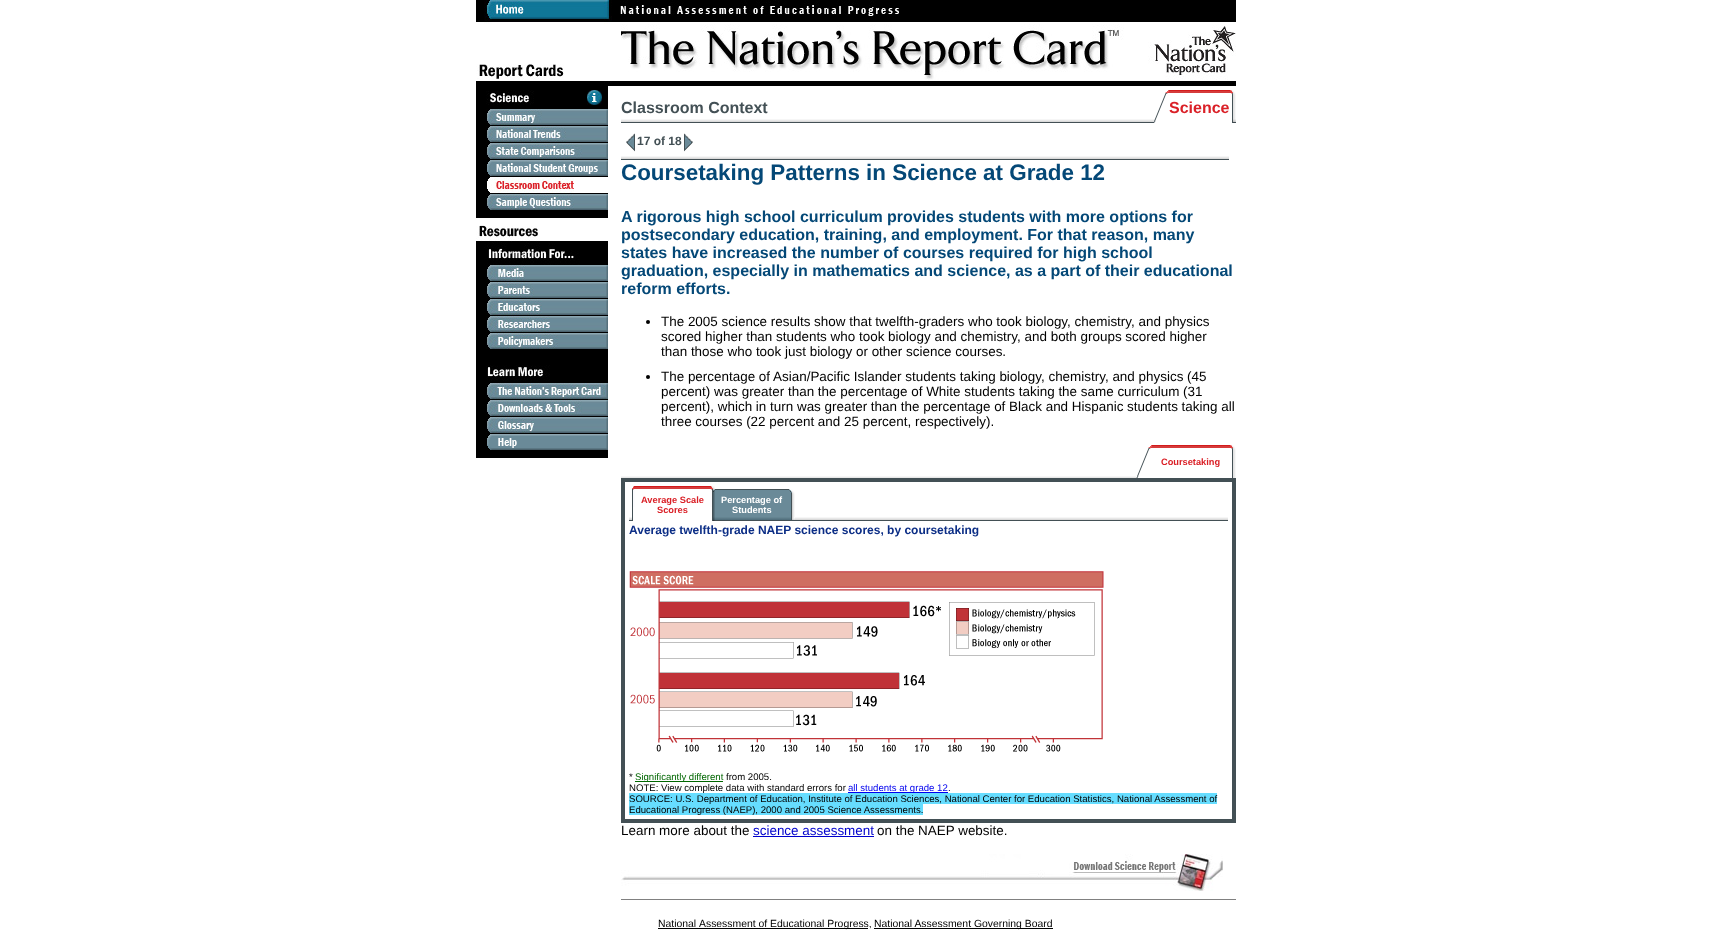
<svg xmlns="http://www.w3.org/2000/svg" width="1719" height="935">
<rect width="100%" height="100%" fill="#fff"/>
<image x="476" y="0" width="760" height="90" href="media/1.png"/>
<rect x="476" y="90" width="10" height="128" fill="#000"/>
<image x="486" y="90" width="101" height="15" href="media/2.png"/>
<image x="587" y="90" width="15" height="15" href="media/3.png"/>
<rect x="602" y="90" width="6" height="15" fill="#000"/>
<rect x="486" y="105" width="122" height="4" fill="#000"/>
<image x="486" y="109" width="122" height="17" href="media/4.png"/>
<image x="486" y="126" width="122" height="17" href="media/5.png"/>
<image x="486" y="143" width="122" height="17" href="media/6.png"/>
<image x="486" y="160" width="122" height="17" href="media/7.png"/>
<image x="486" y="177" width="122" height="17" href="media/8.png"/>
<image x="486" y="194" width="122" height="17" href="media/9.png"/>
<rect x="486" y="211" width="122" height="7" fill="#000"/>
<image x="476" y="225" width="132" height="40" href="media/10.png"/>
<rect x="476" y="265" width="10" height="193" fill="#000"/>
<image x="486" y="265" width="122" height="17" href="media/11.png"/>
<image x="486" y="282" width="122" height="17" href="media/12.png"/>
<image x="486" y="299" width="122" height="17" href="media/13.png"/>
<image x="486" y="316" width="122" height="17" href="media/14.png"/>
<image x="486" y="333" width="122" height="17" href="media/15.png"/>
<rect x="486" y="350" width="122" height="7" fill="#000"/>
<image x="486" y="357" width="122" height="26" href="media/16.png"/>
<image x="486" y="383" width="122" height="17" href="media/17.png"/>
<image x="486" y="400" width="122" height="17" href="media/18.png"/>
<image x="486" y="417" width="122" height="17" href="media/19.png"/>
<image x="486" y="434" width="122" height="17" href="media/20.png"/>
<rect x="486" y="451" width="122" height="7" fill="#000"/>
<image x="621" y="119" width="531" height="4" href="media/21.png"/>
<text x="621" y="113" style="font-family:Liberation Sans;font-size:16px;font-weight:bold;fill:#435055">Classroom Context</text>
<image x="1152" y="90" width="17" height="35" href="media/22.png"/>
<image x="1169" y="90" width="61" height="35" href="media/23.png"/>
<text x="1169" y="113" style="font-family:Liberation Sans;font-size:16px;font-weight:bold;fill:#da2027">Science</text>
<image x="1230" y="90" width="6" height="35" href="media/24.png"/>
<image x="621" y="156" width="608" height="4" href="media/25.png"/>
<image x="626" y="133" width="9" height="19" href="media/26.png"/>
<text x="637" y="145" style="font-family:Liberation Sans;font-size:12px;font-weight:bold;fill:#435055">17 of 18</text>
<image x="684" y="133" width="9" height="19" href="media/27.png"/>
<text x="621" y="180" style="font-family:Liberation Sans;font-size:22.4px;font-weight:bold;fill:#044877">Coursetaking Patterns in Science at Grade 12</text>
<text x="621" y="222" style="font-family:Liberation Sans;font-size:16px;font-weight:bold;fill:#044877">A rigorous high school curriculum provides students with more options for</text>
<text x="621" y="240" style="font-family:Liberation Sans;font-size:16px;font-weight:bold;fill:#044877">postsecondary education, training, and employment. For that reason, many</text>
<text x="621" y="258" style="font-family:Liberation Sans;font-size:16px;font-weight:bold;fill:#044877">states have increased the number of courses required for high school</text>
<text x="621" y="276" style="font-family:Liberation Sans;font-size:16px;font-weight:bold;fill:#044877">graduation, especially in mathematics and science, as a part of their educational</text>
<text x="621" y="294" style="font-family:Liberation Sans;font-size:16px;font-weight:bold;fill:#044877">reform efforts.</text>
<circle cx="648" cy="322" r="2" fill="#000"/>
<text x="661" y="326" style="font-family:Liberation Sans;font-size:13.45px;fill:#000">The 2005 science results show that twelfth-graders who took biology, chemistry, and physics</text>
<text x="661" y="341" style="font-family:Liberation Sans;font-size:13.45px;fill:#000">scored higher than students who took biology and chemistry, and both groups scored higher</text>
<text x="661" y="356" style="font-family:Liberation Sans;font-size:13.45px;fill:#000">than those who took just biology or other science courses.</text>
<circle cx="648" cy="377" r="2" fill="#000"/>
<text x="661" y="381" style="font-family:Liberation Sans;font-size:13.45px;fill:#000">The percentage of Asian/Pacific Islander students taking biology, chemistry, and physics (45</text>
<text x="661" y="396" style="font-family:Liberation Sans;font-size:13.45px;fill:#000">percent) was greater than the percentage of White students taking the same curriculum (31</text>
<text x="661" y="411" style="font-family:Liberation Sans;font-size:13.45px;fill:#000">percent), which in turn was greater than the percentage of Black and Hispanic students taking all</text>
<text x="661" y="426" style="font-family:Liberation Sans;font-size:13.45px;fill:#000">three courses (22 percent and 25 percent, respectively).</text>
<image x="621" y="476" width="515" height="2" href="media/28.png"/>
<image x="1136" y="445" width="16" height="33" href="media/29.png"/>
<image x="1152" y="445" width="78" height="33" href="media/30.png"/>
<text x="1161" y="465" style="font-family:Liberation Sans;font-size:9.25px;font-weight:bold;fill:#da2027">Coursetaking</text>
<image x="1230" y="445" width="6" height="33" href="media/31.png"/>
<rect x="622.5" y="479.5" width="612" height="342" fill="none" stroke="#435055" stroke-width="3"/>
<rect x="624.5" y="481.5" width="608" height="338" fill="none" stroke="#435055"/>
<image x="629" y="517" width="599" height="4" href="media/32.png"/>
<image x="632" y="486" width="9" height="35" href="media/33.png"/>
<image x="641" y="486" width="63" height="35" href="media/34.png"/>
<text x="641" y="503" style="font-family:Liberation Sans;font-size:9.25px;font-weight:bold;fill:#da2027">Average Scale</text>
<text x="657" y="513" style="font-family:Liberation Sans;font-size:9.25px;font-weight:bold;fill:#da2027">Scores</text>
<image x="704" y="486" width="17" height="35" href="media/35.png"/>
<image x="721" y="489" width="62" height="31" href="media/36.png"/>
<text x="721" y="503" style="font-family:Liberation Sans;font-size:9.25px;font-weight:bold;fill:#fff">Percentage of</text>
<text x="732" y="513" style="font-family:Liberation Sans;font-size:9.25px;font-weight:bold;fill:#fff">Students</text>
<image x="783" y="489" width="12" height="31" href="media/37.png"/>
<text x="629" y="534" style="font-family:Liberation Sans;font-size:12px;font-weight:bold;fill:#0c2e86">Average twelfth-grade NAEP science scores, by coursetaking</text>
<image x="629" y="571" width="475" height="181" href="media/38.png"/>
<text x="629" y="780" style="font-family:Liberation Sans;font-size:9.6px;fill:#000">*</text>
<rect x="635" y="781" width="88" height="1" fill="#060"/>
<text x="635" y="780" style="font-family:Liberation Sans;font-size:9.6px;fill:#060">Significantly different</text>
<text x="726" y="780" style="font-family:Liberation Sans;font-size:9.6px;fill:#000">from 2005.</text>
<text x="629" y="791" style="font-family:Liberation Sans;font-size:9.6px;fill:#000">NOTE: View complete data with standard errors for</text>
<rect x="848" y="792" width="100" height="1" fill="#00e"/>
<text x="848" y="791" style="font-family:Liberation Sans;font-size:9.6px;fill:#00e">all students at grade 12</text>
<text x="948" y="791" style="font-family:Liberation Sans;font-size:9.6px;fill:#000">.</text>
<rect x="629" y="793" width="588" height="11" fill="#6df"/>
<text x="629" y="802" style="font-family:Liberation Sans;font-size:9.6px;fill:#000">SOURCE: U.S. Department of Education, Institute of Education Sciences, National Center for Education Statistics, National Assessment of</text>
<rect x="629" y="804" width="294" height="11" fill="#6df"/>
<text x="629" y="813" style="font-family:Liberation Sans;font-size:9.6px;fill:#000">Educational Progress (NAEP), 2000 and 2005 Science Assessments.</text>
<text x="621" y="835" style="font-family:Liberation Sans;font-size:13.45px;fill:#000">Learn more about the</text>
<text x="753" y="835" style="font-family:Liberation Sans;font-size:13.45px;fill:#00c">science assessment</text>
<rect x="753" y="836" width="121" height="1" fill="#00c"/>
<text x="877" y="835" style="font-family:Liberation Sans;font-size:13.45px;fill:#000">on the NAEP website.</text>
<image x="621" y="854" width="602" height="37" href="media/39.png"/>
<rect x="621" y="899" width="615" height="1" fill="#808080"/>
<text x="658" y="927" style="font-family:Liberation Sans;font-size:10.4px;fill:#000">National</text>
<rect x="658" y="928" width="210" height="1" fill="#000"/>
<text x="699" y="927" style="font-family:Liberation Sans;font-size:10.4px;fill:#000">Assessment of Educational Progress,</text>
<rect x="874" y="928" width="179" height="1" fill="#000"/>
<text x="874" y="927" style="font-family:Liberation Sans;font-size:10.4px;fill:#000">National Assessment Governing Board</text>
</svg>
